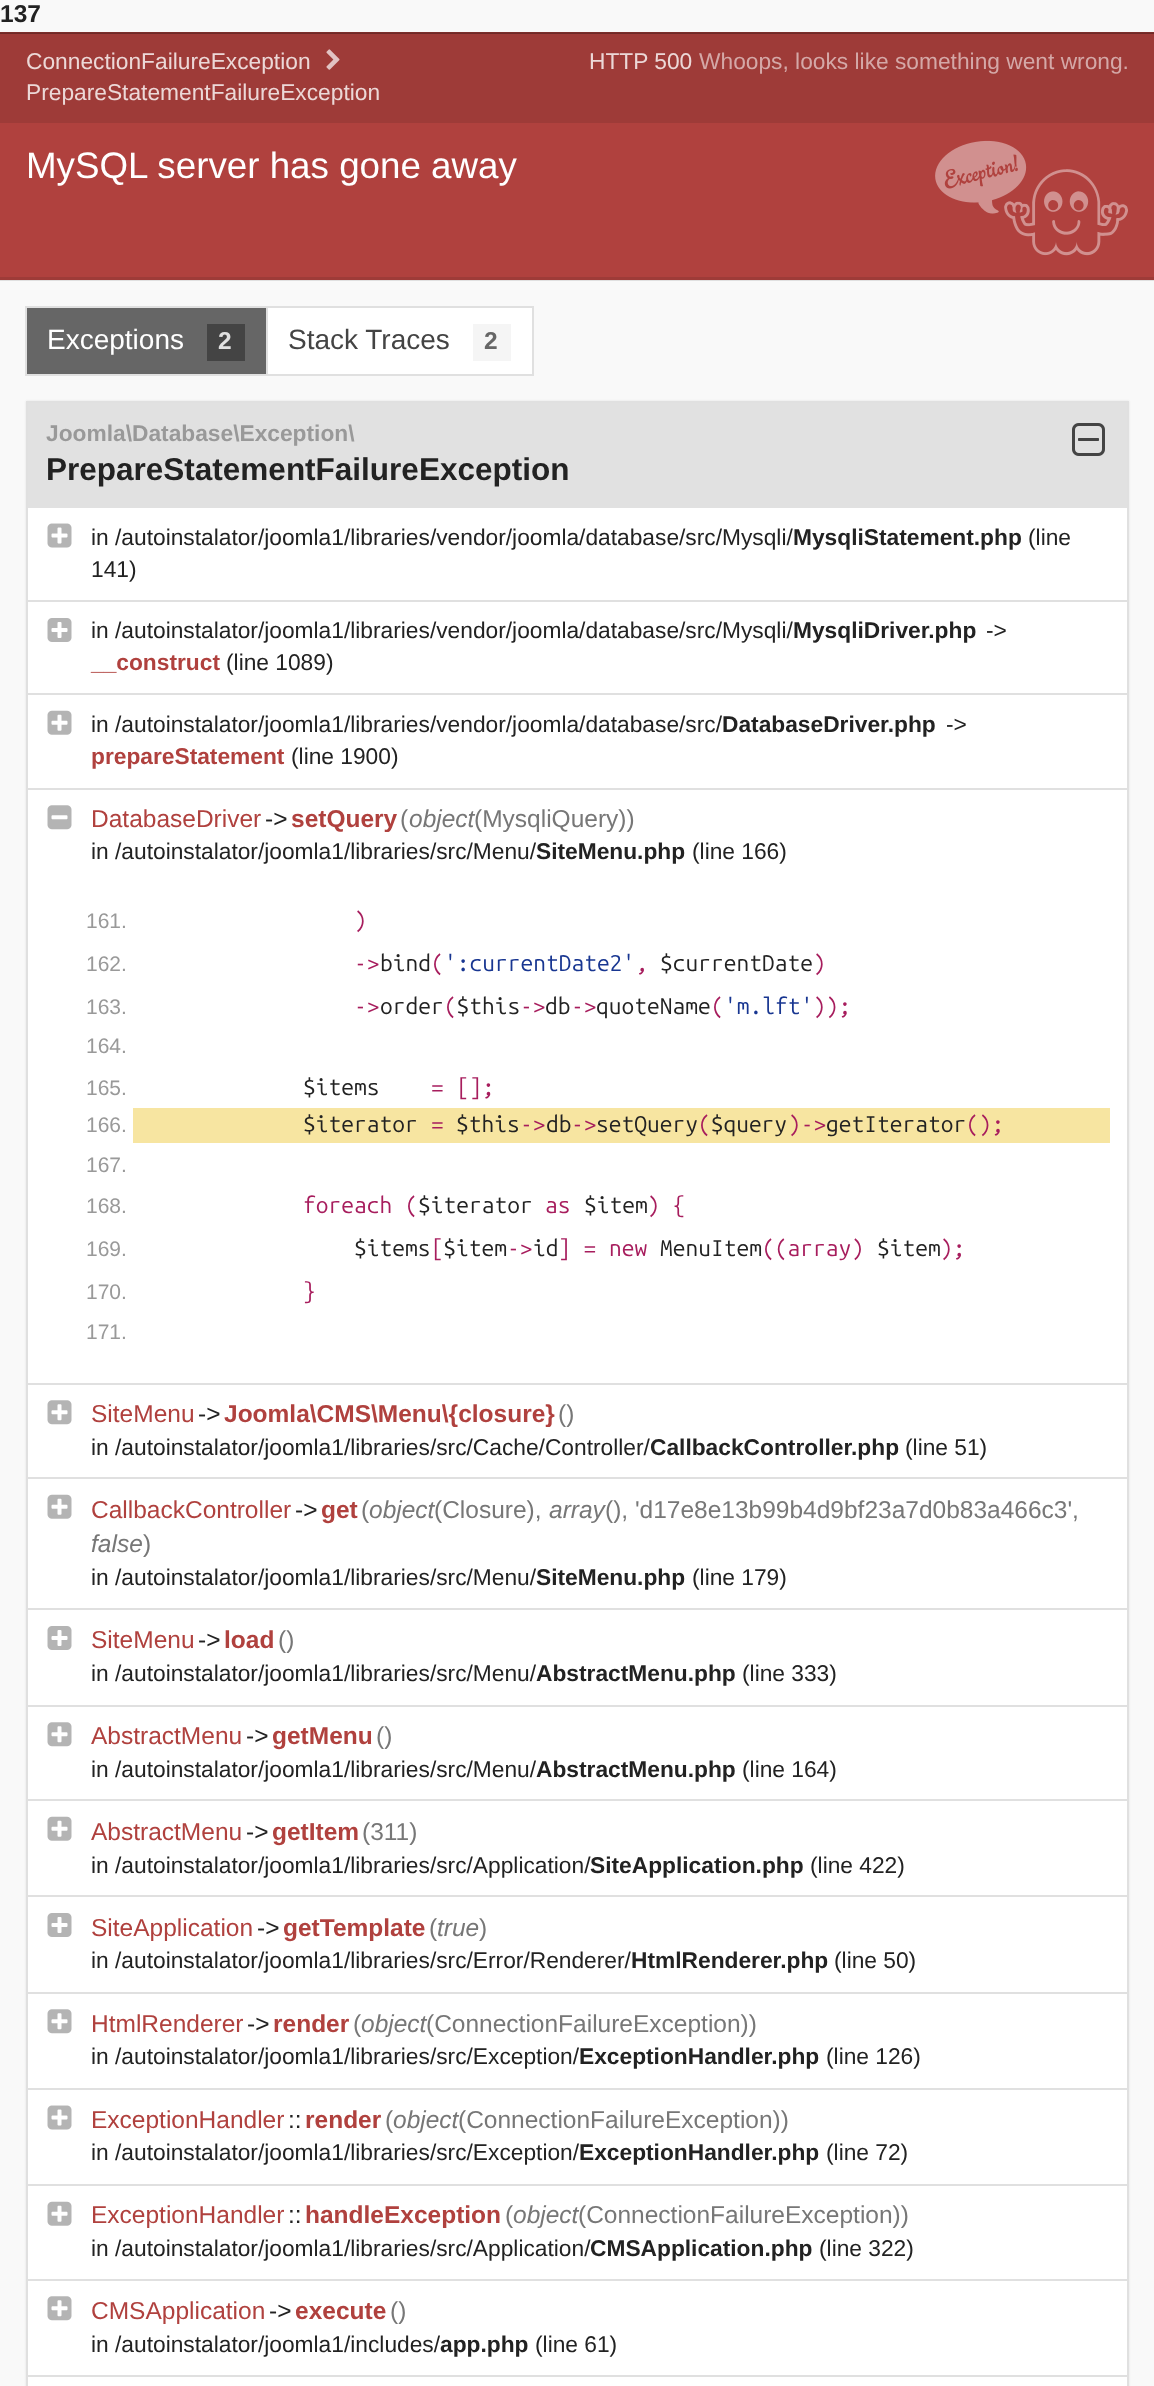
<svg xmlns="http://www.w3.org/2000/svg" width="1154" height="2386">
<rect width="100%" height="100%" fill="#f9f9f9"/>
<rect y="280" width="1154" height="1" fill="#e0e0e0"/>
<text x="0" y="22" style="font-family:Liberation Sans;font-size:24.5px;font-weight:bold;fill:#222">137</text>
<rect y="123" width="1154" height="154" fill="#b0413e"/>
<rect y="34" width="1154" height="89" fill="#9e3b38"/>
<rect y="277" width="1154" height="3" fill="#9e3b38"/>
<rect y="32" width="1154" height="1" fill="#7b2e2b"/>
<rect y="33" width="1154" height="1" fill="#6f2927"/>
<text x="26" y="69" style="font-family:Liberation Sans;font-size:22.75px;fill:#ecd8d7">ConnectionFailureException</text>
<image x="326" y="49" width="14" height="21" href="media/1.png"/>
<text x="26" y="100" style="font-family:Liberation Sans;font-size:22.75px;fill:#ecd8d7">PrepareStatementFailureException</text>
<text x="589" y="69" style="font-family:Liberation Sans;font-size:22.75px;fill:#ecd8d7">HTTP 500</text>
<text x="699" y="69" style="font-family:Liberation Sans;font-size:22.75px;fill:#d4a8a7">Whoops, looks like something went wrong.</text>
<text x="26" y="178" style="font-family:Liberation Sans;font-size:36.75px;fill:#fff">MySQL server has gone away</text>
<image x="935" y="140" width="193" height="116" href="media/2.png"/>
<rect x="26" y="307" width="241" height="68" fill="#666" stroke="#e0e0e0" stroke-width="2"/>
<text x="47" y="349" style="font-family:Liberation Sans;font-size:28px;fill:#fff">Exceptions</text>
<rect x="207" y="324" width="38" height="37" fill="#444"/>
<text x="218" y="349" style="font-family:Liberation Sans;font-size:24.5px;font-weight:bold;fill:#e0e0e0">2</text>
<rect x="267" y="307" width="266" height="68" fill="#fff" stroke="#e0e0e0" stroke-width="2"/>
<text x="288" y="349" style="font-family:Liberation Sans;font-size:28px;fill:#444">Stack Traces</text>
<rect x="473" y="324" width="38" height="37" fill="#f5f5f5"/>
<text x="484" y="349" style="font-family:Liberation Sans;font-size:24.5px;font-weight:bold;fill:#666">2</text>
<rect x="26" y="401" width="1103" height="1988" fill="#80808033" filter="blur(1px)"/>
<rect x="28" y="508" width="1099" height="1878" fill="#fff"/>
<rect x="27" y="402" width="1101" height="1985" fill="none" stroke="#e0e0e0" stroke-width="2"/>
<text x="46" y="441" style="font-family:Liberation Sans;font-size:22.75px;font-weight:bold;fill:#999">Joomla\Database\Exception\</text>
<text x="46" y="480" style="font-family:Liberation Sans;font-size:31.5px;font-weight:bold;fill:#222">PrepareStatementFailureException</text>
<image x="1072" y="423" width="33" height="33" href="media/3.png"/>
<image x="47" y="523" width="25" height="25" href="media/4.png"/>
<text x="91" y="545" style="font-family:Liberation Sans;font-size:22.75px;fill:#222">in /autoinstalator/joomla1/libraries/vendor/joomla/database/src/Mysqli/</text>
<text x="793" y="545" style="font-family:Liberation Sans;font-size:22.75px;font-weight:bold;fill:#222">MysqliStatement.php</text>
<text x="1028" y="545" style="font-family:Liberation Sans;font-size:22.75px;fill:#222">(line</text>
<text x="91" y="577" style="font-family:Liberation Sans;font-size:22.75px;fill:#222">141)</text>
<rect x="28" y="600" width="1099" height="2" fill="#e0e0e0"/>
<image x="47" y="618" width="25" height="24" href="media/5.png"/>
<text x="91" y="638" style="font-family:Liberation Sans;font-size:22.75px;fill:#222">in /autoinstalator/joomla1/libraries/vendor/joomla/database/src/Mysqli/</text>
<text x="793" y="638" style="font-family:Liberation Sans;font-size:22.75px;font-weight:bold;fill:#222">MysqliDriver.php</text>
<text x="986" y="638" style="font-family:Liberation Sans;font-size:22.75px;fill:#222">-&gt;</text>
<text x="91" y="670" style="font-family:Liberation Sans;font-size:22.75px;font-weight:bold;fill:#b0413e">__construct</text>
<text x="226" y="670" style="font-family:Liberation Sans;font-size:22.75px;fill:#222">(line 1089)</text>
<rect x="28" y="693" width="1099" height="2" fill="#e0e0e0"/>
<image x="47" y="710" width="25" height="25" href="media/6.png"/>
<text x="91" y="732" style="font-family:Liberation Sans;font-size:22.75px;fill:#222">in /autoinstalator/joomla1/libraries/vendor/joomla/database/src/</text>
<text x="722" y="732" style="font-family:Liberation Sans;font-size:22.75px;font-weight:bold;fill:#222">DatabaseDriver.php</text>
<text x="946" y="732" style="font-family:Liberation Sans;font-size:22.75px;fill:#222">-&gt;</text>
<text x="91" y="764" style="font-family:Liberation Sans;font-size:22.75px;font-weight:bold;fill:#b0413e">prepareStatement</text>
<text x="291" y="764" style="font-family:Liberation Sans;font-size:22.75px;fill:#222">(line 1900)</text>
<rect x="28" y="788" width="1099" height="2" fill="#e0e0e0"/>
<image x="47" y="805" width="25" height="25" href="media/7.png"/>
<text x="91" y="827" style="font-family:Liberation Sans;font-size:24.5px;fill:#b0413e">DatabaseDriver</text>
<text x="265" y="827" style="font-family:Liberation Sans;font-size:24.5px;fill:#222">-&gt;</text>
<text x="291" y="827" style="font-family:Liberation Sans;font-size:24.5px;font-weight:bold;fill:#b0413e">setQuery</text>
<text x="400" y="827" style="font-family:Liberation Sans;font-size:24.5px;fill:#777">(</text>
<text x="409" y="827" style="font-family:Liberation Sans;font-size:24.5px;font-style:italic;fill:#777">object</text>
<text x="474" y="827" style="font-family:Liberation Sans;font-size:24.5px;fill:#777">(MysqliQuery))</text>
<text x="91" y="859" style="font-family:Liberation Sans;font-size:22.75px;fill:#222">in /autoinstalator/joomla1/libraries/src/Menu/</text>
<text x="536" y="859" style="font-family:Liberation Sans;font-size:22.75px;font-weight:bold;fill:#222">SiteMenu.php</text>
<text x="692" y="859" style="font-family:Liberation Sans;font-size:22.75px;fill:#222">(line 166)</text>
<text x="86" y="928" style="font-family:Liberation Sans;font-size:21px;fill:#999">161.</text>
<text x="354" y="928" style="font-family:Ubuntu Mono;font-size:22.75px;fill:#a71d5d">)</text>
<text x="86" y="971" style="font-family:Liberation Sans;font-size:21px;fill:#999">162.</text>
<text x="354" y="971" style="font-family:Ubuntu Mono;font-size:22.75px;fill:#a71d5d">-&gt;</text>
<text x="380" y="971" style="font-family:Ubuntu Mono;font-size:22.75px;fill:#222">bind</text>
<text x="431" y="971" style="font-family:Ubuntu Mono;font-size:22.75px;fill:#a71d5d">(</text>
<text x="444" y="971" style="font-family:Ubuntu Mono;font-size:22.75px;fill:#183691">':currentDate2'</text>
<text x="660" y="971" style="font-family:Ubuntu Mono;font-size:22.75px;fill:#222">$currentDate</text>
<text x="813" y="971" style="font-family:Ubuntu Mono;font-size:22.75px;fill:#a71d5d">)</text>
<text x="635" y="971" style="font-family:Ubuntu Mono;font-size:22.75px;fill:#a71d5d">,</text>
<text x="380" y="1014" style="font-family:Ubuntu Mono;font-size:22.75px;fill:#222">order $this</text>
<text x="86" y="1014" style="font-family:Liberation Sans;font-size:21px;fill:#999">163.</text>
<text x="354" y="1014" style="font-family:Ubuntu Mono;font-size:22.75px;fill:#a71d5d">-&gt;</text>
<text x="444" y="1014" style="font-family:Ubuntu Mono;font-size:22.75px;fill:#a71d5d">(</text>
<text x="520" y="1014" style="font-family:Ubuntu Mono;font-size:22.75px;fill:#a71d5d">-&gt;</text>
<text x="545" y="1014" style="font-family:Ubuntu Mono;font-size:22.75px;fill:#222">db</text>
<text x="571" y="1014" style="font-family:Ubuntu Mono;font-size:22.75px;fill:#a71d5d">-&gt;</text>
<text x="596" y="1014" style="font-family:Ubuntu Mono;font-size:22.75px;fill:#222">quoteName</text>
<text x="711" y="1014" style="font-family:Ubuntu Mono;font-size:22.75px;fill:#a71d5d">(</text>
<text x="724" y="1014" style="font-family:Ubuntu Mono;font-size:22.75px;fill:#183691">'m.lft'</text>
<text x="813" y="1014" style="font-family:Ubuntu Mono;font-size:22.75px;fill:#a71d5d">));</text>
<text x="86" y="1053" style="font-family:Liberation Sans;font-size:21px;fill:#999">164.</text>
<text x="86" y="1095" style="font-family:Liberation Sans;font-size:21px;fill:#999">165.</text>
<text x="303" y="1095" style="font-family:Ubuntu Mono;font-size:22.75px;fill:#222">$items</text>
<text x="431" y="1095" style="font-family:Ubuntu Mono;font-size:22.75px;fill:#a71d5d">= [];</text>
<rect x="133" y="1108" width="977" height="35" fill="#f7e5a1"/>
<text x="303" y="1132" style="font-family:Ubuntu Mono;font-size:22.75px;fill:#222">$iterator</text>
<text x="456" y="1132" style="font-family:Ubuntu Mono;font-size:22.75px;fill:#222">$this</text>
<text x="546" y="1132" style="font-family:Ubuntu Mono;font-size:22.75px;fill:#222">db</text>
<text x="596" y="1132" style="font-family:Ubuntu Mono;font-size:22.75px;fill:#222">setQuery $query</text>
<text x="86" y="1132" style="font-family:Liberation Sans;font-size:21px;fill:#999">166.</text>
<text x="431" y="1132" style="font-family:Ubuntu Mono;font-size:22.75px;fill:#a71d5d">=</text>
<text x="520" y="1132" style="font-family:Ubuntu Mono;font-size:22.75px;fill:#a71d5d">-&gt;</text>
<text x="571" y="1132" style="font-family:Ubuntu Mono;font-size:22.75px;fill:#a71d5d">-&gt;</text>
<text x="698" y="1132" style="font-family:Ubuntu Mono;font-size:22.75px;fill:#a71d5d">(</text>
<text x="788" y="1132" style="font-family:Ubuntu Mono;font-size:22.75px;fill:#a71d5d">)-&gt;</text>
<text x="826" y="1132" style="font-family:Ubuntu Mono;font-size:22.75px;fill:#222">getIterator</text>
<text x="966" y="1132" style="font-family:Ubuntu Mono;font-size:22.75px;fill:#a71d5d">();</text>
<text x="86" y="1172" style="font-family:Liberation Sans;font-size:21px;fill:#999">167.</text>
<text x="86" y="1213" style="font-family:Liberation Sans;font-size:21px;fill:#999">168.</text>
<text x="303" y="1213" style="font-family:Ubuntu Mono;font-size:22.75px;fill:#a71d5d">foreach (</text>
<text x="418" y="1213" style="font-family:Ubuntu Mono;font-size:22.75px;fill:#222">$iterator</text>
<text x="545" y="1213" style="font-family:Ubuntu Mono;font-size:22.75px;fill:#a71d5d">as</text>
<text x="584" y="1213" style="font-family:Ubuntu Mono;font-size:22.75px;fill:#222">$item</text>
<text x="647" y="1213" style="font-family:Ubuntu Mono;font-size:22.75px;fill:#a71d5d">) {</text>
<text x="354" y="1256" style="font-family:Ubuntu Mono;font-size:22.75px;fill:#222">$items $item</text>
<text x="86" y="1256" style="font-family:Liberation Sans;font-size:21px;fill:#999">169.</text>
<text x="431" y="1256" style="font-family:Ubuntu Mono;font-size:22.75px;fill:#a71d5d">[</text>
<text x="507" y="1256" style="font-family:Ubuntu Mono;font-size:22.75px;fill:#a71d5d">-&gt;</text>
<text x="533" y="1256" style="font-family:Ubuntu Mono;font-size:22.75px;fill:#222">id</text>
<text x="558" y="1256" style="font-family:Ubuntu Mono;font-size:22.75px;fill:#a71d5d">] = new</text>
<text x="660" y="1256" style="font-family:Ubuntu Mono;font-size:22.75px;fill:#222">MenuItem</text>
<text x="762" y="1256" style="font-family:Ubuntu Mono;font-size:22.75px;fill:#a71d5d">((array)</text>
<text x="877" y="1256" style="font-family:Ubuntu Mono;font-size:22.75px;fill:#222">$item</text>
<text x="940" y="1256" style="font-family:Ubuntu Mono;font-size:22.75px;fill:#a71d5d">);</text>
<text x="86" y="1299" style="font-family:Liberation Sans;font-size:21px;fill:#999">170.</text>
<text x="303" y="1299" style="font-family:Ubuntu Mono;font-size:22.75px;fill:#a71d5d">}</text>
<text x="86" y="1339" style="font-family:Liberation Sans;font-size:21px;fill:#999">171.</text>
<rect x="28" y="1383" width="1099" height="2" fill="#e0e0e0"/>
<image x="47" y="1400" width="25" height="25" href="media/8.png"/>
<text x="91" y="1422" style="font-family:Liberation Sans;font-size:24.5px;fill:#b0413e">SiteMenu</text>
<text x="198" y="1422" style="font-family:Liberation Sans;font-size:24.5px;fill:#222">-&gt;</text>
<text x="224" y="1422" style="font-family:Liberation Sans;font-size:24.5px;font-weight:bold;fill:#b0413e">Joomla\CMS\Menu\{closure}</text>
<text x="558" y="1422" style="font-family:Liberation Sans;font-size:24.5px;fill:#777">()</text>
<text x="91" y="1455" style="font-family:Liberation Sans;font-size:22.75px;fill:#222">in /autoinstalator/joomla1/libraries/src/Cache/Controller/</text>
<text x="650" y="1455" style="font-family:Liberation Sans;font-size:22.75px;font-weight:bold;fill:#222">CallbackController.php</text>
<text x="905" y="1455" style="font-family:Liberation Sans;font-size:22.75px;fill:#222">(line 51)</text>
<rect x="28" y="1477" width="1099" height="2" fill="#e0e0e0"/>
<image x="47" y="1494" width="25" height="25" href="media/6.png"/>
<text x="91" y="1518" style="font-family:Liberation Sans;font-size:24.5px;fill:#b0413e">CallbackController</text>
<text x="295" y="1518" style="font-family:Liberation Sans;font-size:24.5px;fill:#222">-&gt;</text>
<text x="321" y="1518" style="font-family:Liberation Sans;font-size:24.5px;font-weight:bold;fill:#b0413e">get</text>
<text x="361" y="1518" style="font-family:Liberation Sans;font-size:24.5px;fill:#777">(</text>
<text x="369" y="1518" style="font-family:Liberation Sans;font-size:24.5px;font-style:italic;fill:#777">object</text>
<text x="434" y="1518" style="font-family:Liberation Sans;font-size:24.5px;fill:#777">(Closure),</text>
<text x="549" y="1518" style="font-family:Liberation Sans;font-size:24.5px;font-style:italic;fill:#777">array</text>
<text x="605" y="1518" style="font-family:Liberation Sans;font-size:24.5px;fill:#777">(), 'd17e8e13b99b4d9bf23a7d0b83a466c3',</text>
<text x="91" y="1552" style="font-family:Liberation Sans;font-size:24.5px;font-style:italic;fill:#777">false</text>
<text x="143" y="1552" style="font-family:Liberation Sans;font-size:24.5px;fill:#777">)</text>
<text x="91" y="1585" style="font-family:Liberation Sans;font-size:22.75px;fill:#222">in /autoinstalator/joomla1/libraries/src/Menu/</text>
<text x="536" y="1585" style="font-family:Liberation Sans;font-size:22.75px;font-weight:bold;fill:#222">SiteMenu.php</text>
<text x="692" y="1585" style="font-family:Liberation Sans;font-size:22.75px;fill:#222">(line 179)</text>
<rect x="28" y="1608" width="1099" height="2" fill="#e0e0e0"/>
<image x="47" y="1626" width="25" height="24" href="media/5.png"/>
<text x="91" y="1648" style="font-family:Liberation Sans;font-size:24.5px;fill:#b0413e">SiteMenu</text>
<text x="198" y="1648" style="font-family:Liberation Sans;font-size:24.5px;fill:#222">-&gt;</text>
<text x="224" y="1648" style="font-family:Liberation Sans;font-size:24.5px;font-weight:bold;fill:#b0413e">load</text>
<text x="278" y="1648" style="font-family:Liberation Sans;font-size:24.5px;fill:#777">()</text>
<text x="91" y="1681" style="font-family:Liberation Sans;font-size:22.75px;fill:#222">in /autoinstalator/joomla1/libraries/src/Menu/</text>
<text x="536" y="1681" style="font-family:Liberation Sans;font-size:22.75px;font-weight:bold;fill:#222">AbstractMenu.php</text>
<text x="742" y="1681" style="font-family:Liberation Sans;font-size:22.75px;fill:#222">(line 333)</text>
<rect x="28" y="1705" width="1099" height="2" fill="#e0e0e0"/>
<image x="47" y="1722" width="25" height="25" href="media/8.png"/>
<text x="91" y="1744" style="font-family:Liberation Sans;font-size:24.5px;fill:#b0413e">AbstractMenu</text>
<text x="246" y="1744" style="font-family:Liberation Sans;font-size:24.5px;fill:#222">-&gt;</text>
<text x="272" y="1744" style="font-family:Liberation Sans;font-size:24.5px;font-weight:bold;fill:#b0413e">getMenu</text>
<text x="376" y="1744" style="font-family:Liberation Sans;font-size:24.5px;fill:#777">()</text>
<text x="91" y="1777" style="font-family:Liberation Sans;font-size:22.75px;fill:#222">in /autoinstalator/joomla1/libraries/src/Menu/</text>
<text x="536" y="1777" style="font-family:Liberation Sans;font-size:22.75px;font-weight:bold;fill:#222">AbstractMenu.php</text>
<text x="742" y="1777" style="font-family:Liberation Sans;font-size:22.75px;fill:#222">(line 164)</text>
<rect x="28" y="1799" width="1099" height="2" fill="#e0e0e0"/>
<image x="47" y="1816" width="25" height="25" href="media/6.png"/>
<text x="91" y="1840" style="font-family:Liberation Sans;font-size:24.5px;fill:#b0413e">AbstractMenu</text>
<text x="246" y="1840" style="font-family:Liberation Sans;font-size:24.5px;fill:#222">-&gt;</text>
<text x="272" y="1840" style="font-family:Liberation Sans;font-size:24.5px;font-weight:bold;fill:#b0413e">getItem</text>
<text x="362" y="1840" style="font-family:Liberation Sans;font-size:24.5px;fill:#777">(311)</text>
<text x="91" y="1873" style="font-family:Liberation Sans;font-size:22.75px;fill:#222">in /autoinstalator/joomla1/libraries/src/Application/</text>
<text x="590" y="1873" style="font-family:Liberation Sans;font-size:22.75px;font-weight:bold;fill:#222">SiteApplication.php</text>
<text x="810" y="1873" style="font-family:Liberation Sans;font-size:22.75px;fill:#222">(line 422)</text>
<rect x="28" y="1895" width="1099" height="2" fill="#e0e0e0"/>
<image x="47" y="1913" width="25" height="24" href="media/5.png"/>
<text x="91" y="1936" style="font-family:Liberation Sans;font-size:24.5px;fill:#b0413e">SiteApplication</text>
<text x="257" y="1936" style="font-family:Liberation Sans;font-size:24.5px;fill:#222">-&gt;</text>
<text x="283" y="1936" style="font-family:Liberation Sans;font-size:24.5px;font-weight:bold;fill:#b0413e">getTemplate</text>
<text x="429" y="1936" style="font-family:Liberation Sans;font-size:24.5px;fill:#777">(</text>
<text x="437" y="1936" style="font-family:Liberation Sans;font-size:24.5px;font-style:italic;fill:#777">true</text>
<text x="479" y="1936" style="font-family:Liberation Sans;font-size:24.5px;fill:#777">)</text>
<text x="91" y="1968" style="font-family:Liberation Sans;font-size:22.75px;fill:#222">in /autoinstalator/joomla1/libraries/src/Error/Renderer/</text>
<text x="631" y="1968" style="font-family:Liberation Sans;font-size:22.75px;font-weight:bold;fill:#222">HtmlRenderer.php</text>
<text x="834" y="1968" style="font-family:Liberation Sans;font-size:22.75px;fill:#222">(line 50)</text>
<rect x="28" y="1992" width="1099" height="2" fill="#e0e0e0"/>
<image x="47" y="2009" width="25" height="25" href="media/8.png"/>
<text x="91" y="2032" style="font-family:Liberation Sans;font-size:24.5px;fill:#b0413e">HtmlRenderer</text>
<text x="247" y="2032" style="font-family:Liberation Sans;font-size:24.5px;fill:#222">-&gt;</text>
<text x="273" y="2032" style="font-family:Liberation Sans;font-size:24.5px;font-weight:bold;fill:#b0413e">render</text>
<text x="353" y="2032" style="font-family:Liberation Sans;font-size:24.5px;fill:#777">(</text>
<text x="361" y="2032" style="font-family:Liberation Sans;font-size:24.5px;font-style:italic;fill:#777">object</text>
<text x="426" y="2032" style="font-family:Liberation Sans;font-size:24.5px;fill:#777">(ConnectionFailureException))</text>
<text x="91" y="2064" style="font-family:Liberation Sans;font-size:22.75px;fill:#222">in /autoinstalator/joomla1/libraries/src/Exception/</text>
<text x="579" y="2064" style="font-family:Liberation Sans;font-size:22.75px;font-weight:bold;fill:#222">ExceptionHandler.php</text>
<text x="826" y="2064" style="font-family:Liberation Sans;font-size:22.75px;fill:#222">(line 126)</text>
<rect x="28" y="2088" width="1099" height="2" fill="#e0e0e0"/>
<image x="47" y="2105" width="25" height="25" href="media/4.png"/>
<text x="91" y="2128" style="font-family:Liberation Sans;font-size:24.5px;fill:#b0413e">ExceptionHandler</text>
<text x="288" y="2128" style="font-family:Liberation Sans;font-size:24.5px;fill:#222">::</text>
<text x="305" y="2128" style="font-family:Liberation Sans;font-size:24.5px;font-weight:bold;fill:#b0413e">render</text>
<text x="385" y="2128" style="font-family:Liberation Sans;font-size:24.5px;fill:#777">(</text>
<text x="393" y="2128" style="font-family:Liberation Sans;font-size:24.5px;font-style:italic;fill:#777">object</text>
<text x="458" y="2128" style="font-family:Liberation Sans;font-size:24.5px;fill:#777">(ConnectionFailureException))</text>
<text x="91" y="2160" style="font-family:Liberation Sans;font-size:22.75px;fill:#222">in /autoinstalator/joomla1/libraries/src/Exception/</text>
<text x="579" y="2160" style="font-family:Liberation Sans;font-size:22.75px;font-weight:bold;fill:#222">ExceptionHandler.php</text>
<text x="826" y="2160" style="font-family:Liberation Sans;font-size:22.75px;fill:#222">(line 72)</text>
<rect x="28" y="2184" width="1099" height="2" fill="#e0e0e0"/>
<image x="47" y="2201" width="25" height="25" href="media/6.png"/>
<text x="91" y="2223" style="font-family:Liberation Sans;font-size:24.5px;fill:#b0413e">ExceptionHandler</text>
<text x="288" y="2223" style="font-family:Liberation Sans;font-size:24.5px;fill:#222">::</text>
<text x="305" y="2223" style="font-family:Liberation Sans;font-size:24.5px;font-weight:bold;fill:#b0413e">handleException</text>
<text x="505" y="2223" style="font-family:Liberation Sans;font-size:24.5px;fill:#777">(</text>
<text x="513" y="2223" style="font-family:Liberation Sans;font-size:24.5px;font-style:italic;fill:#777">object</text>
<text x="578" y="2223" style="font-family:Liberation Sans;font-size:24.5px;fill:#777">(ConnectionFailureException))</text>
<text x="91" y="2256" style="font-family:Liberation Sans;font-size:22.75px;fill:#222">in /autoinstalator/joomla1/libraries/src/Application/</text>
<text x="590" y="2256" style="font-family:Liberation Sans;font-size:22.75px;font-weight:bold;fill:#222">CMSApplication.php</text>
<text x="819" y="2256" style="font-family:Liberation Sans;font-size:22.75px;fill:#222">(line 322)</text>
<rect x="28" y="2279" width="1099" height="2" fill="#e0e0e0"/>
<image x="47" y="2296" width="25" height="25" href="media/8.png"/>
<text x="91" y="2319" style="font-family:Liberation Sans;font-size:24.5px;fill:#b0413e">CMSApplication</text>
<text x="269" y="2319" style="font-family:Liberation Sans;font-size:24.5px;fill:#222">-&gt;</text>
<text x="295" y="2319" style="font-family:Liberation Sans;font-size:24.5px;font-weight:bold;fill:#b0413e">execute</text>
<text x="390" y="2319" style="font-family:Liberation Sans;font-size:24.5px;fill:#777">()</text>
<text x="91" y="2352" style="font-family:Liberation Sans;font-size:22.75px;fill:#222">in /autoinstalator/joomla1/includes/</text>
<text x="440" y="2352" style="font-family:Liberation Sans;font-size:22.75px;font-weight:bold;fill:#222">app.php</text>
<text x="535" y="2352" style="font-family:Liberation Sans;font-size:22.75px;fill:#222">(line 61)</text>
<rect x="28" y="2375" width="1099" height="2" fill="#e0e0e0"/>
</svg>
